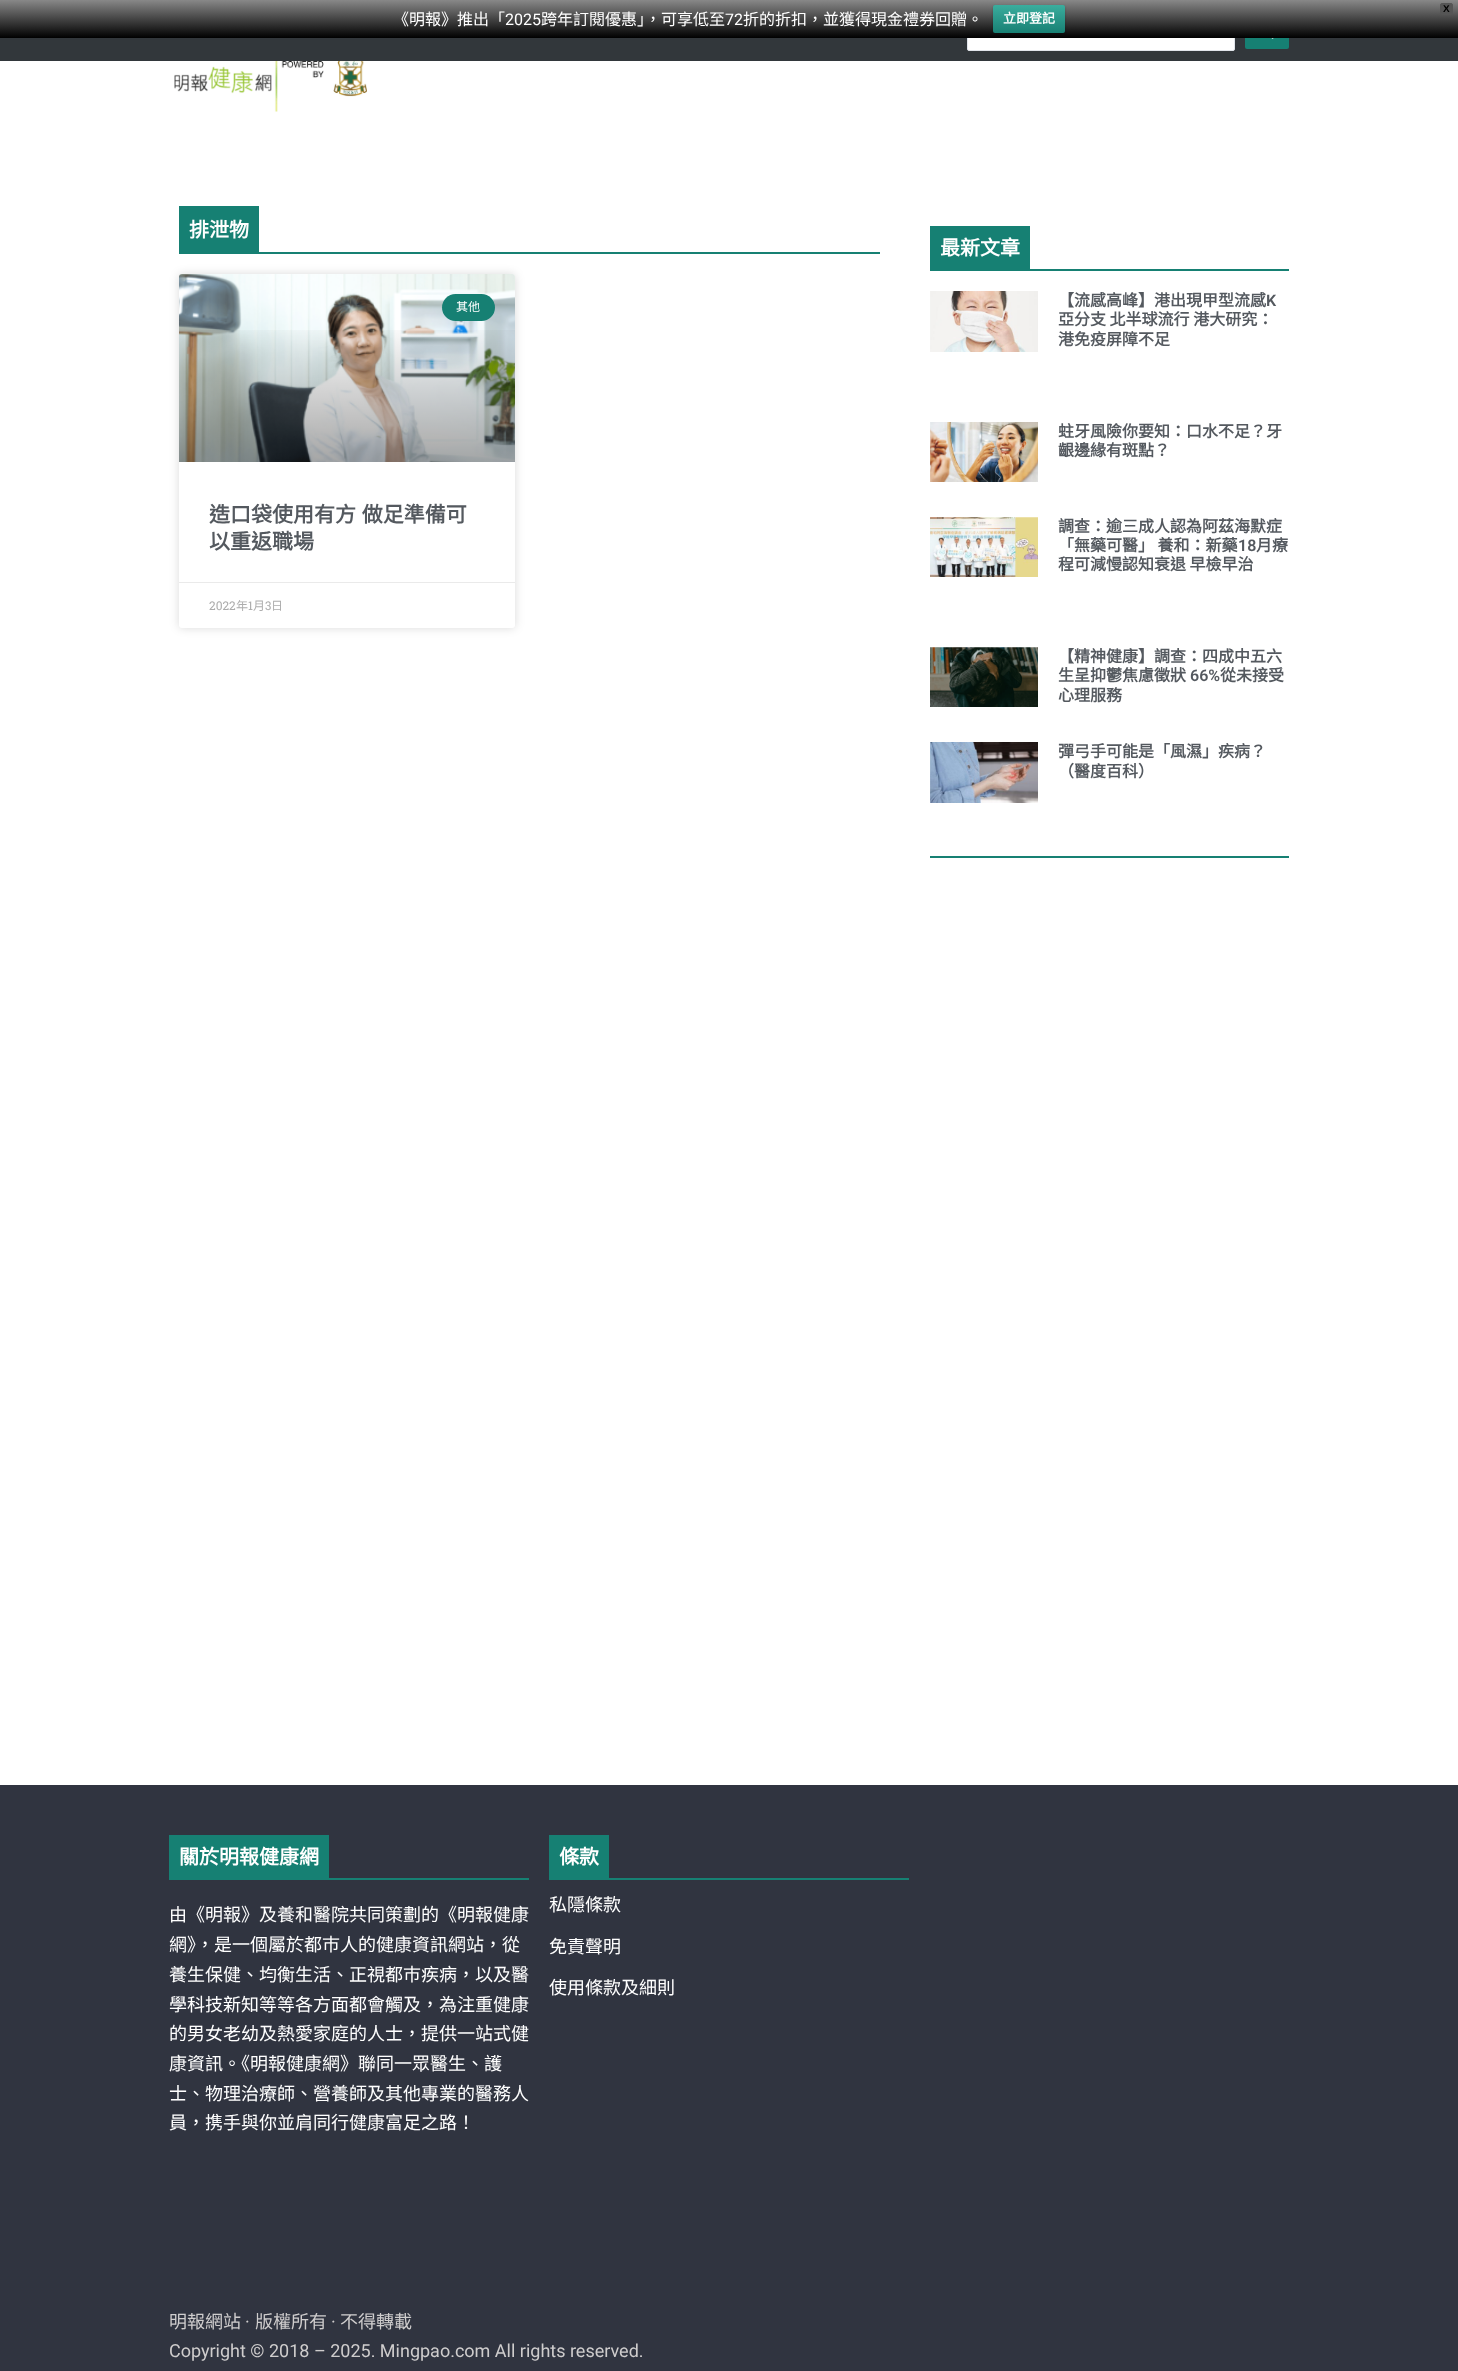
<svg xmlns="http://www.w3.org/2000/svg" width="1458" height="2371">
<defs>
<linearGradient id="g1" gradientUnits="userSpaceOnUse" x1="729" y1="0" x2="729" y2="38"><stop offset="0" stop-color="#888"/><stop offset="1" stop-color="#000"/></linearGradient>
<linearGradient id="g2" gradientUnits="userSpaceOnUse" x1="1029" y1="5" x2="1029" y2="33"><stop offset="0" stop-color="#3bad9e"/><stop offset="1" stop-color="#188074"/></linearGradient>
<linearGradient id="g3" gradientUnits="userSpaceOnUse" x1="347" y1="462" x2="347" y2="274"><stop offset="0" stop-color="#000" stop-opacity="0.35"/><stop offset="0.75" stop-color="#000" stop-opacity="0"/></linearGradient>
</defs>
<rect width="100%" height="100%" fill="#fff"/>
<rect y="38" width="1458" height="23" fill="#32373b"/>
<rect x="967.5" y="13.5" width="267" height="37" rx="1.5" fill="#fff" stroke="#e1e5eb"/>
<rect x="1245" y="15" width="44" height="34" rx="2" fill="#168073"/>
<rect width="1458" height="38" fill="url(#g1)"/>
<rect x="1440.5" y="3.5" width="12" height="11" rx="1.5" fill="#555" stroke="#555"/>
<text x="1443" y="12" style="font-family:Liberation Sans;font-size:10px;font-weight:bold;fill:#000">X</text>
<text x="393" y="25" style="font-family:Noto Sans CJK HK;font-size:16px;fill:#fff">《明報》推出「</text>
<text x="505" y="25" style="font-family:Roboto;font-size:16px;fill:#fff">2025</text>
<text x="541" y="25" style="font-family:Noto Sans CJK HK;font-size:16px;fill:#fff">跨年訂閱優惠」，可享低至</text>
<text x="725" y="25" style="font-family:Roboto;font-size:16px;fill:#fff">72</text>
<text x="743" y="25" style="font-family:Noto Sans CJK HK;font-size:16px;fill:#fff">折的折扣，並獲得現金禮券回贈。</text>
<rect x="993" y="6" width="72" height="28" rx="2" fill="#00000033" filter="blur(1px)"/>
<rect x="993" y="5" width="72" height="28" rx="2" fill="url(#g2)"/>
<text x="1003" y="23" style="font-family:Noto Sans CJK HK;font-size:13px;font-weight:bold;fill:#fff">立即登記</text>
<image x="1271" y="38" width="3" height="1" href="media/1.png"/>
<image x="174" y="61" width="104" height="51" href="media/2.png"/>
<image x="281" y="61" width="86" height="36" href="media/3.png"/>
<rect x="179" y="206" width="80" height="46" fill="#168073"/>
<text x="189" y="237" style="font-family:Noto Sans CJK HK;font-size:20px;font-weight:bold;fill:#fff">排泄物</text>
<rect x="179" y="252" width="701" height="2" fill="#168073"/>
<rect x="179" y="274" width="336" height="354" rx="3" fill="#00000026" filter="blur(5px)"/>
<rect x="179" y="274" width="336" height="354" rx="3" fill="#fff"/>
<image x="179" y="274" width="336" height="188" href="media/4.png"/>
<rect x="179" y="330" width="336" height="132" fill="url(#g3)"/>
<rect x="442" y="294" width="53" height="27" rx="13.5" fill="#168073"/>
<text x="456" y="311" style="font-family:Noto Sans CJK HK;font-size:12px;fill:#fff">其他</text>
<text x="209" y="522" word-spacing="1" style="font-family:Noto Sans CJK HK;font-size:21px;font-weight:bold;fill:#54595f">造口袋使用有方 做足準備可</text>
<text x="209" y="549" style="font-family:Noto Sans CJK HK;font-size:21px;font-weight:bold;fill:#54595f">以重返職場</text>
<rect x="179" y="582" width="336" height="1" fill="#eaeaea"/>
<text x="209" y="610" style="font-family:Roboto Slab;font-size:12px;fill:#adadad">2022</text>
<text x="236" y="610" style="font-family:Noto Sans CJK HK;font-size:12px;fill:#adadad">年</text>
<text x="248" y="610" style="font-family:Roboto Slab;font-size:12px;fill:#adadad">1</text>
<text x="253" y="610" style="font-family:Noto Sans CJK HK;font-size:12px;fill:#adadad">月</text>
<text x="265" y="610" style="font-family:Roboto Slab;font-size:12px;fill:#adadad">3</text>
<text x="271" y="610" style="font-family:Noto Sans CJK HK;font-size:12px;fill:#adadad">日</text>
<rect x="930" y="226" width="100" height="43" fill="#168073"/>
<text x="940" y="255" style="font-family:Noto Sans CJK HK;font-size:20px;font-weight:bold;fill:#fff">最新文章</text>
<rect x="930" y="269" width="359" height="2" fill="#168073"/>
<image x="930" y="291" width="108" height="61" href="media/5.png"/>
<text x="1058" y="306" style="font-family:Noto Sans CJK HK;font-size:16px;font-weight:bold;fill:#54595f">【流感高峰】港出現甲型流感</text>
<text x="1266" y="306" style="font-family:Roboto;font-size:16px;font-weight:600;fill:#54595f">K</text>
<text x="1058" y="325" style="font-family:Noto Sans CJK HK;font-size:16px;font-weight:bold;fill:#54595f">亞分支 北半球流行 港大研究：</text>
<text x="1058" y="345" style="font-family:Noto Sans CJK HK;font-size:16px;font-weight:bold;fill:#54595f">港免疫屏障不足</text>
<image x="930" y="422" width="108" height="60" href="media/6.png"/>
<text x="1058" y="437" style="font-family:Noto Sans CJK HK;font-size:16px;font-weight:bold;fill:#54595f">蛀牙風險你要知：口水不足？牙</text>
<text x="1058" y="456" style="font-family:Noto Sans CJK HK;font-size:16px;font-weight:bold;fill:#54595f">齦邊緣有斑點？</text>
<image x="930" y="517" width="108" height="60" href="media/7.png"/>
<text x="1058" y="532" style="font-family:Noto Sans CJK HK;font-size:16px;font-weight:bold;fill:#54595f">調查：逾三成人認為阿茲海默症</text>
<text x="1058" y="551" style="font-family:Noto Sans CJK HK;font-size:16px;font-weight:bold;fill:#54595f">「無藥可醫」 養和：新藥</text>
<text x="1238" y="551" style="font-family:Roboto;font-size:16px;font-weight:600;fill:#54595f">18</text>
<text x="1256" y="551" style="font-family:Noto Sans CJK HK;font-size:16px;font-weight:bold;fill:#54595f">月療</text>
<text x="1058" y="570" style="font-family:Noto Sans CJK HK;font-size:16px;font-weight:bold;fill:#54595f">程可減慢認知衰退 早檢早治</text>
<image x="930" y="647" width="108" height="60" href="media/8.png"/>
<text x="1058" y="662" style="font-family:Noto Sans CJK HK;font-size:16px;font-weight:bold;fill:#54595f">【精神健康】調查：四成中五六</text>
<text x="1058" y="681" style="font-family:Noto Sans CJK HK;font-size:16px;font-weight:bold;fill:#54595f">生呈抑鬱焦慮徵狀</text>
<text x="1190" y="681" style="font-family:Roboto;font-size:16px;font-weight:600;fill:#54595f">66%</text>
<text x="1220" y="681" style="font-family:Noto Sans CJK HK;font-size:16px;font-weight:bold;fill:#54595f">從未接受</text>
<text x="1058" y="701" style="font-family:Noto Sans CJK HK;font-size:16px;font-weight:bold;fill:#54595f">心理服務</text>
<image x="930" y="742" width="108" height="61" href="media/9.png"/>
<text x="1058" y="757" style="font-family:Noto Sans CJK HK;font-size:16px;font-weight:bold;fill:#54595f">彈弓手可能是「風濕」疾病？</text>
<text x="1058" y="777" style="font-family:Noto Sans CJK HK;font-size:16px;font-weight:bold;fill:#54595f">（醫度百科）</text>
<rect x="930" y="856" width="359" height="2" fill="#168073"/>
<rect y="1785" width="1458" height="586" fill="#303440"/>
<rect x="169" y="1835" width="160" height="43" fill="#168073"/>
<text x="179" y="1864" style="font-family:Noto Sans CJK HK;font-size:20px;font-weight:bold;fill:#fff">關於明報健康網</text>
<rect x="169" y="1878" width="360" height="2" fill="#168073"/>
<text x="169" y="1921" style="font-family:Noto Sans CJK HK;font-size:18px;fill:#fff">由《明報》及養和醫院共同策劃的《明報健康</text>
<text x="169" y="1951" style="font-family:Noto Sans CJK HK;font-size:18px;fill:#fff">網》，是一個屬於都巿人的健康資訊網站，從</text>
<text x="169" y="1981" style="font-family:Noto Sans CJK HK;font-size:18px;fill:#fff">養生保健、均衡生活、正視都巿疾病，以及醫</text>
<text x="169" y="2011" style="font-family:Noto Sans CJK HK;font-size:18px;fill:#fff">學科技新知等等各方面都會觸及，為注重健康</text>
<text x="169" y="2040" style="font-family:Noto Sans CJK HK;font-size:18px;fill:#fff">的男女老幼及熱愛家庭的人士，提供一站式健</text>
<text x="169" y="2070" style="font-family:Noto Sans CJK HK;font-size:18px;fill:#fff">康資訊。《明報健康網》聯同一眾醫生、護</text>
<text x="169" y="2100" style="font-family:Noto Sans CJK HK;font-size:18px;fill:#fff">士、物理治療師、營養師及其他專業的醫務人</text>
<text x="169" y="2129" style="font-family:Noto Sans CJK HK;font-size:18px;fill:#fff">員，携手與你並肩同行健康富足之路！</text>
<rect x="549" y="1835" width="60" height="43" fill="#168073"/>
<text x="559" y="1864" style="font-family:Noto Sans CJK HK;font-size:20px;font-weight:bold;fill:#fff">條款</text>
<rect x="549" y="1878" width="360" height="2" fill="#168073"/>
<text x="549" y="1911" style="font-family:Noto Sans CJK HK;font-size:18px;fill:#fff">私隱條款</text>
<text x="549" y="1953" style="font-family:Noto Sans CJK HK;font-size:18px;fill:#fff">免責聲明</text>
<text x="549" y="1994" style="font-family:Noto Sans CJK HK;font-size:18px;fill:#fff">使用條款及細則</text>
<text x="169" y="2328" style="font-family:Noto Sans CJK HK;font-size:18px;fill:#cfcdcd">明報網站</text>
<text x="245" y="2328" style="font-family:Roboto;font-size:18px;fill:#cfcdcd">·</text>
<text x="255" y="2328" style="font-family:Noto Sans CJK HK;font-size:18px;fill:#cfcdcd">版權所有</text>
<text x="331" y="2328" style="font-family:Roboto;font-size:18px;fill:#cfcdcd">·</text>
<text x="340" y="2328" style="font-family:Noto Sans CJK HK;font-size:18px;fill:#cfcdcd">不得轉載</text>
<text x="169" y="2357" style="font-family:Roboto;font-size:18px;fill:#cfcdcd">Copyright © 2018 – 2025. Mingpao.com All rights reserved.</text>
</svg>
